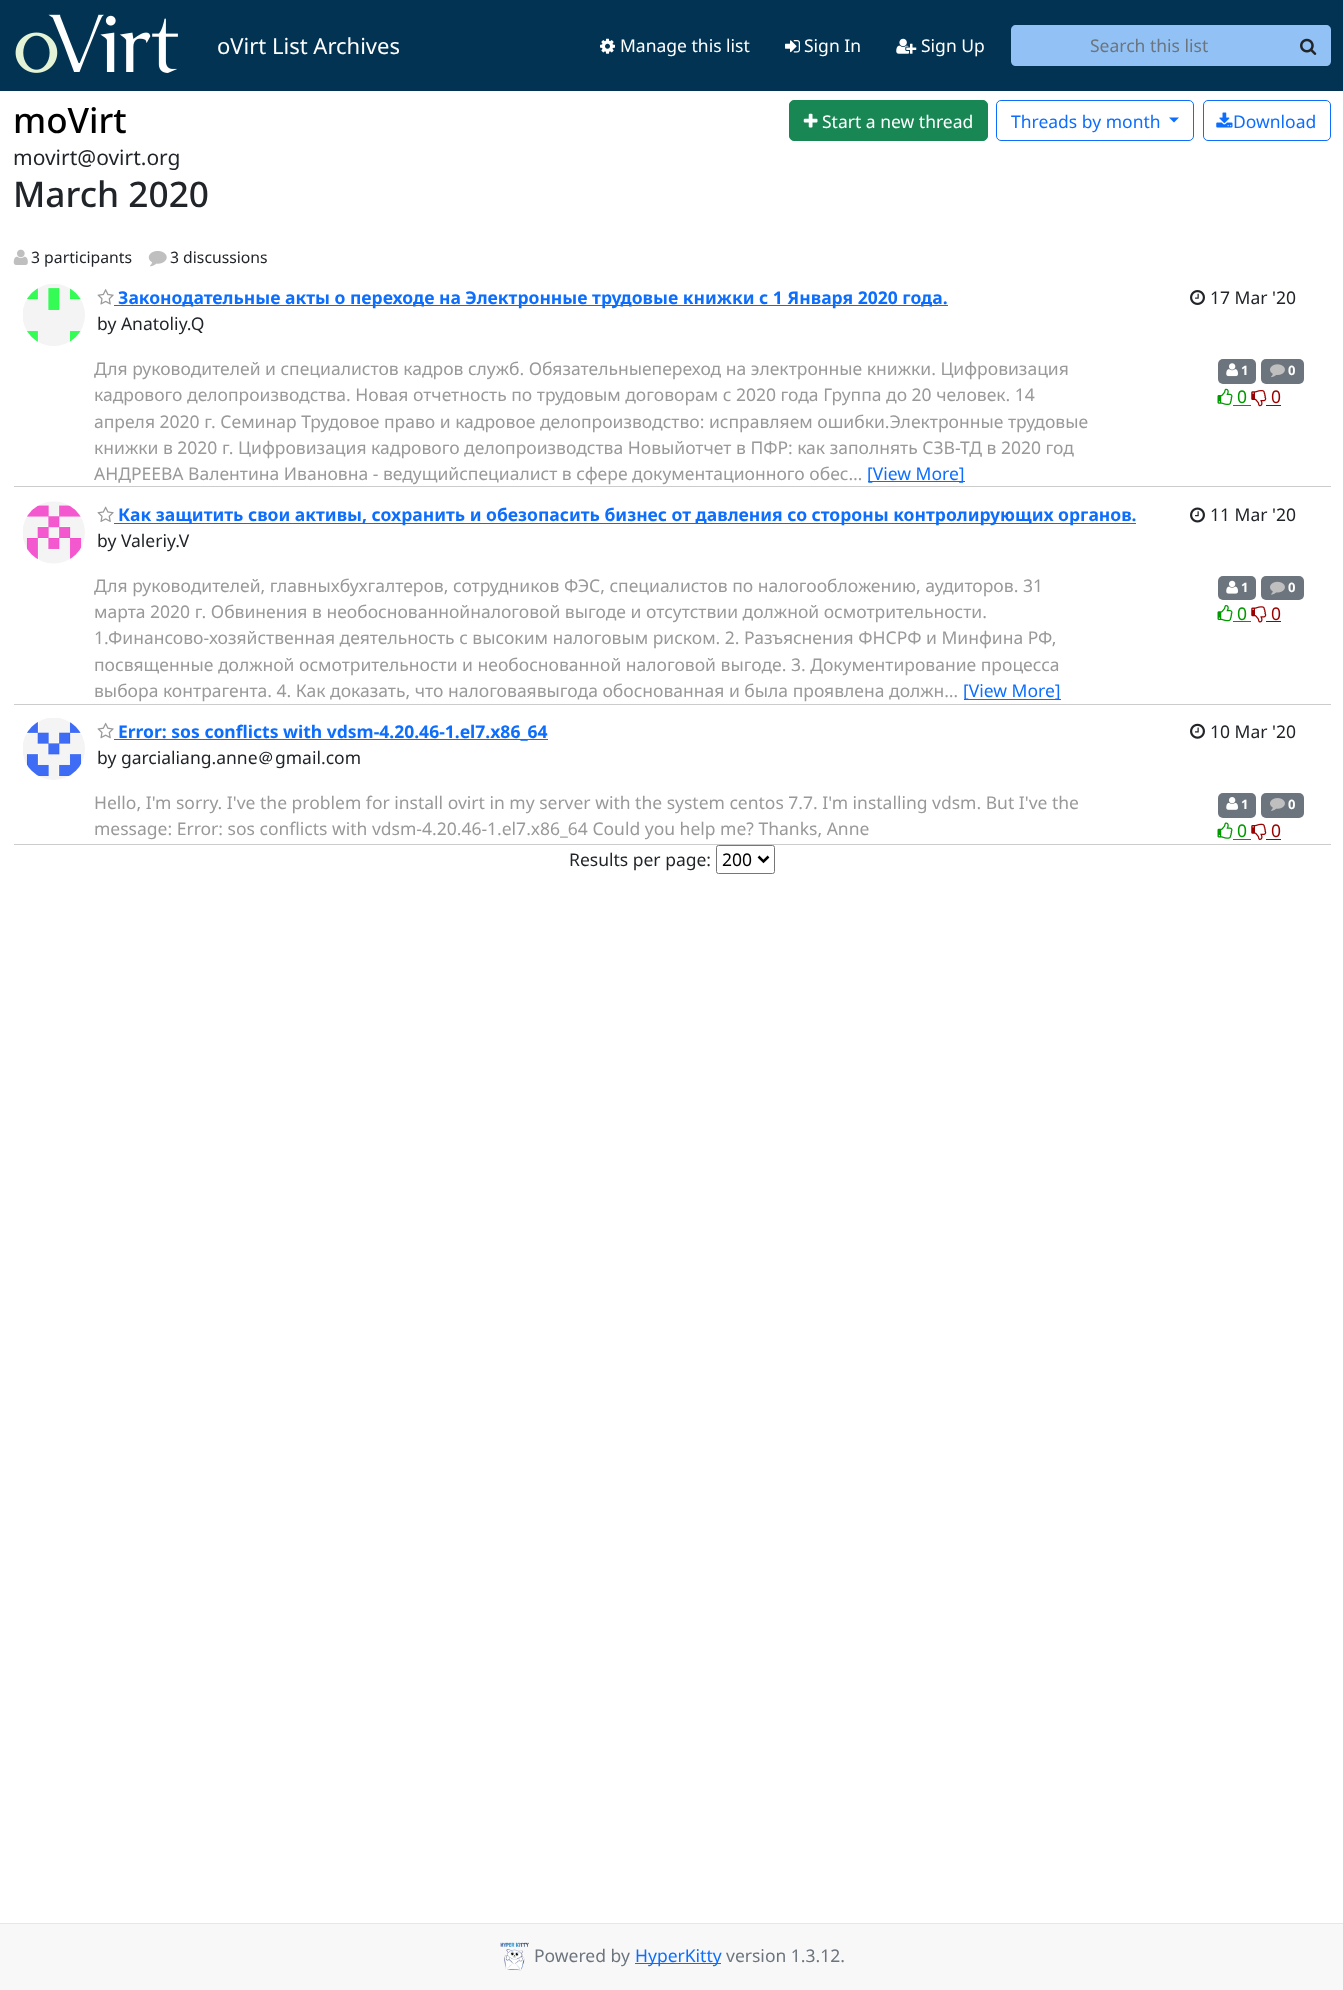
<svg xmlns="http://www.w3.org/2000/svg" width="1343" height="1990">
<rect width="100%" height="100%" fill="#fff"/>
<rect width="1343" height="91" fill="#023352"/>
<image x="15" y="14" width="163" height="59" href="media/1.png"/>
<text x="217" y="54" style="font-family:Noto Sans;font-size:22px;fill:#fff">oVirt List Archives</text>
<image x="600" y="38" width="15" height="16" href="media/2.png"/>
<text x="620" y="52" style="font-family:Noto Sans;font-size:17.5px;fill:#fff">Manage this list</text>
<image x="785" y="40" width="15" height="13" href="media/3.png"/>
<text x="804" y="52" style="font-family:Noto Sans;font-size:17.5px;fill:#fff">Sign In</text>
<image x="896" y="38" width="21" height="16" href="media/4.png"/>
<text x="921" y="52" style="font-family:Noto Sans;font-size:17.5px;fill:#fff">Sign Up</text>
<path d="M1016 25h272v41h-272c-3 0-5-2-5-5v-31c0-3 2-5 5-5z" fill="#92c2f5"/>
<text x="1090" y="52" style="font-family:Noto Sans;font-size:17.5px;fill:#6c757d">Search this list</text>
<path d="M1286 25h40c3 0 5 2 5 5v31c0 3-2 5-5 5h-40z" fill="#92c2f5"/>
<image x="1300" y="38" width="17" height="17" href="media/5.png"/>
<text x="13" y="133" style="font-family:Noto Sans;font-size:35px;font-weight:500;fill:#000">moVirt</text>
<rect x="789.5" y="100.5" width="198" height="40" rx="4.5" fill="#198754" stroke="#198754"/>
<image x="803" y="113" width="15" height="15" href="media/6.png"/>
<text x="822" y="128" style="font-family:Noto Sans;font-size:17.5px;fill:#fff">Start a new thread</text>
<rect x="996.5" y="100.5" width="197" height="40" rx="4.5" fill="none" stroke="#0d6efd"/>
<text x="1011" y="128" style="font-family:Noto Sans;font-size:17.5px;fill:#0d6efd">Threads by month</text>
<path d="M1169 117.5h10l-5 5z" fill="#0d6efd"/>
<rect x="1203.5" y="100.5" width="127" height="40" rx="4.5" fill="none" stroke="#0d6efd"/>
<image x="1216" y="112" width="17" height="16" href="media/7.png"/>
<text x="1233" y="128" style="font-family:Noto Sans;font-size:17.5px;fill:#0d6efd">Download</text>
<text x="13" y="165" style="font-family:Noto Sans;font-size:21px;fill:#212529">movirt@ovirt.org</text>
<text x="13" y="207" style="font-family:Noto Sans;font-size:35.25px;font-weight:500;fill:#212529">March 2020</text>
<image x="13" y="249" width="15" height="16" href="media/8.png"/>
<text x="31" y="263" style="font-family:Noto Sans;font-size:15.75px;fill:#212529">3 participants</text>
<image x="148" y="251" width="19" height="16" href="media/9.png"/>
<text x="170" y="263" style="font-family:Noto Sans;font-size:15.75px;fill:#212529">3 discussions</text>
<rect x="14" y="486" width="1317" height="1" fill="#ccc"/>
<image x="23" y="284" width="62" height="62" href="media/10.png"/>
<image x="97" y="289" width="17" height="16" href="media/11.png"/>
<rect x="114" y="305" width="834" height="1" fill="#0d6efd"/>
<text x="118" y="304" style="font-family:Noto Sans;font-size:17.5px;font-weight:bold;fill:#0d6efd">Законодательные акты о переходе на Электронные трудовые книжки с 1 Января 2020 года.</text>
<text x="97" y="330" style="font-family:Noto Sans;font-size:17.5px;fill:#212529">by Anatoliy.Q</text>
<image x="1190" y="290" width="15" height="15" href="media/12.png"/>
<text x="1210" y="304" style="font-family:Noto Sans;font-size:17.5px;fill:#212529">17 Mar '20</text>
<text x="94" y="375" style="font-family:Noto Sans;font-size:17.5px;fill:#999">Для руководителей и специалистов кадров служб. Обязательныепереход на электронные книжки. Цифровизация</text>
<text x="94" y="401" style="font-family:Noto Sans;font-size:17.5px;fill:#999">кадрового делопроизводства. Новая отчетность по трудовым договорам с 2020 года Группа до 20 человек. 14</text>
<text x="94" y="428" style="font-family:Noto Sans;font-size:17.5px;fill:#999">апреля 2020 г. Семинар Трудовое право и кадровое делопроизводство: исправляем ошибки.Электронные трудовые</text>
<text x="94" y="454" style="font-family:Noto Sans;font-size:17.5px;fill:#999">книжки в 2020 г. Цифровизация кадрового делопроизводства Новыйотчет в ПФР: как заполнять СЗВ-ТД в 2020 год</text>
<text x="94" y="480" style="font-family:Noto Sans;font-size:17.5px;fill:#999">АНДРЕЕВА Валентина Ивановна - ведущийспециалист в сфере документационного обес…</text>
<rect x="868" y="481" width="97" height="1" fill="#0d6efd"/>
<text x="867" y="480" style="font-family:Noto Sans;font-size:17.5px;fill:#0d6efd">[View More]</text>
<rect x="1218" y="359" width="38" height="25" rx="5" fill="#6c757d"/>
<image x="1226" y="363" width="12" height="14" href="media/13.png"/>
<text x="1241" y="375" style="font-family:Noto Sans;font-size:13px;font-weight:bold;fill:#fff">1</text>
<rect x="1261" y="359" width="43" height="25" rx="5" fill="#6c757d"/>
<image x="1270" y="364" width="15" height="14" href="media/14.png"/>
<text x="1288" y="375" style="font-family:Noto Sans;font-size:13px;font-weight:bold;fill:#fff">0</text>
<image x="1217" y="388" width="16" height="17" href="media/15.png"/>
<text x="1237" y="403" style="font-family:Noto Sans;font-size:17.5px;fill:#090">0</text>
<rect x="1233" y="405" width="18" height="1" fill="#090"/>
<image x="1251" y="390" width="16" height="17" href="media/16.png"/>
<text x="1271" y="403" style="font-family:Noto Sans;font-size:17.5px;fill:#900">0</text>
<rect x="1266" y="405" width="15" height="1" fill="#900"/>
<rect x="14" y="704" width="1317" height="1" fill="#ccc"/>
<image x="23" y="501" width="62" height="63" href="media/17.png"/>
<image x="97" y="506" width="17" height="16" href="media/18.png"/>
<rect x="114" y="523" width="1022" height="1" fill="#0d6efd"/>
<text x="118" y="521" style="font-family:Noto Sans;font-size:17.5px;font-weight:bold;fill:#0d6efd">Как защитить свои активы, сохранить и обезопасить бизнес от давления со стороны контролирующих органов.</text>
<text x="97" y="547" style="font-family:Noto Sans;font-size:17.5px;fill:#212529">by Valeriy.V</text>
<image x="1190" y="507" width="15" height="16" href="media/19.png"/>
<text x="1210" y="521" style="font-family:Noto Sans;font-size:17.5px;fill:#212529">11 Mar '20</text>
<text x="94" y="592" style="font-family:Noto Sans;font-size:17.5px;fill:#999">Для руководителей, главныхбухгалтеров, сотрудников ФЭС, специалистов по налогообложению, аудиторов. 31</text>
<text x="94" y="618" style="font-family:Noto Sans;font-size:17.5px;fill:#999">марта 2020 г. Обвинения в необоснованнойналоговой выгоде и отсутствии должной осмотрительности.</text>
<text x="94" y="644" style="font-family:Noto Sans;font-size:17.5px;fill:#999">1.Финансово-хозяйственная деятельность с высоким налоговым риском. 2. Разъяснения ФНСРФ и Минфина РФ,</text>
<text x="94" y="671" style="font-family:Noto Sans;font-size:17.5px;fill:#999">посвященные должной осмотрительности и необоснованной налоговой выгоде. 3. Документирование процесса</text>
<text x="94" y="697" style="font-family:Noto Sans;font-size:17.5px;fill:#999">выбора контрагента. 4. Как доказать, что налоговаявыгода обоснованная и была проявлена должн…</text>
<rect x="964" y="699" width="97" height="1" fill="#0d6efd"/>
<text x="963" y="697" style="font-family:Noto Sans;font-size:17.5px;fill:#0d6efd">[View More]</text>
<rect x="1218" y="576" width="38" height="24" rx="5" fill="#6c757d"/>
<image x="1226" y="580" width="12" height="14" href="media/20.png"/>
<text x="1241" y="592" style="font-family:Noto Sans;font-size:13px;font-weight:bold;fill:#fff">1</text>
<rect x="1261" y="576" width="43" height="24" rx="5" fill="#6c757d"/>
<image x="1270" y="581" width="15" height="14" href="media/21.png"/>
<text x="1288" y="592" style="font-family:Noto Sans;font-size:13px;font-weight:bold;fill:#fff">0</text>
<image x="1217" y="605" width="16" height="17" href="media/22.png"/>
<text x="1237" y="620" style="font-family:Noto Sans;font-size:17.5px;fill:#090">0</text>
<rect x="1233" y="621" width="18" height="1" fill="#090"/>
<image x="1251" y="606" width="16" height="17" href="media/23.png"/>
<text x="1271" y="620" style="font-family:Noto Sans;font-size:17.5px;fill:#900">0</text>
<rect x="1266" y="621" width="15" height="1" fill="#900"/>
<rect x="14" y="844" width="1317" height="1" fill="#ccc"/>
<image x="23" y="718" width="62" height="62" href="media/24.png"/>
<image x="97" y="722" width="17" height="17" href="media/25.png"/>
<rect x="114" y="739" width="434" height="1" fill="#0d6efd"/>
<text x="118" y="738" style="font-family:Noto Sans;font-size:17.5px;font-weight:bold;fill:#0d6efd">Error: sos conflicts with vdsm-4.20.46-1.el7.x86_64</text>
<text x="97" y="764" style="font-family:Noto Sans;font-size:17.5px;fill:#212529">by garcialiang.anne</text>
<text x="257" y="764" style="font-family:WenQuanYi Zen Hei;font-size:17.5px;font-weight:500;fill:#212529">＠</text>
<text x="275" y="764" style="font-family:Noto Sans;font-size:17.5px;fill:#212529">gmail.com</text>
<image x="1190" y="723" width="15" height="16" href="media/26.png"/>
<text x="1210" y="738" style="font-family:Noto Sans;font-size:17.5px;fill:#212529">10 Mar '20</text>
<text x="94" y="809" style="font-family:Noto Sans;font-size:17.5px;fill:#999">Hello, I'm sorry. I've the problem for install ovirt in my server with the system centos 7.7. I'm installing vdsm. But I've the</text>
<text x="94" y="835" style="font-family:Noto Sans;font-size:17.5px;fill:#999">message: Error: sos conflicts with vdsm-4.20.46-1.el7.x86_64 Could you help me? Thanks, Anne</text>
<rect x="1218" y="793" width="38" height="25" rx="5" fill="#6c757d"/>
<image x="1226" y="797" width="12" height="13" href="media/27.png"/>
<text x="1241" y="809" style="font-family:Noto Sans;font-size:13px;font-weight:bold;fill:#fff">1</text>
<rect x="1261" y="793" width="43" height="25" rx="5" fill="#6c757d"/>
<image x="1270" y="798" width="15" height="13" href="media/28.png"/>
<text x="1288" y="809" style="font-family:Noto Sans;font-size:13px;font-weight:bold;fill:#fff">0</text>
<image x="1217" y="822" width="16" height="17" href="media/29.png"/>
<text x="1237" y="837" style="font-family:Noto Sans;font-size:17.5px;fill:#090">0</text>
<rect x="1233" y="839" width="18" height="1" fill="#090"/>
<image x="1251" y="823" width="16" height="17" href="media/30.png"/>
<text x="1271" y="837" style="font-family:Noto Sans;font-size:17.5px;fill:#900">0</text>
<rect x="1266" y="839" width="15" height="1" fill="#900"/>
<text x="569" y="866" style="font-family:Noto Sans;font-size:17.5px;fill:#212529">Results per page:</text>
<rect x="716.5" y="845.5" width="58" height="28" rx="2" fill="none" stroke="#767676"/>
<path d="M758.5 856.5l5 5l5-5" fill="none" stroke="#000" stroke-width="2.5"/>
<text x="722" y="866" style="font-family:Noto Sans;font-size:17.5px;fill:#000">200</text>
<rect y="1924" width="1343" height="66" fill="#f8f8f8"/>
<rect y="1923" width="1343" height="1" fill="#e7e7e7"/>
<image x="500" y="1942" width="29" height="29" href="media/31.png"/>
<text x="534" y="1962" style="font-family:Noto Sans;font-size:17.5px;fill:#6c757d">Powered by</text>
<rect x="635" y="1963" width="86" height="1" fill="#0d6efd"/>
<text x="635" y="1962" style="font-family:Noto Sans;font-size:17.5px;fill:#0d6efd">HyperKitty</text>
<text x="726" y="1962" style="font-family:Noto Sans;font-size:17.5px;fill:#6c757d">version 1.3.12.</text>
</svg>
